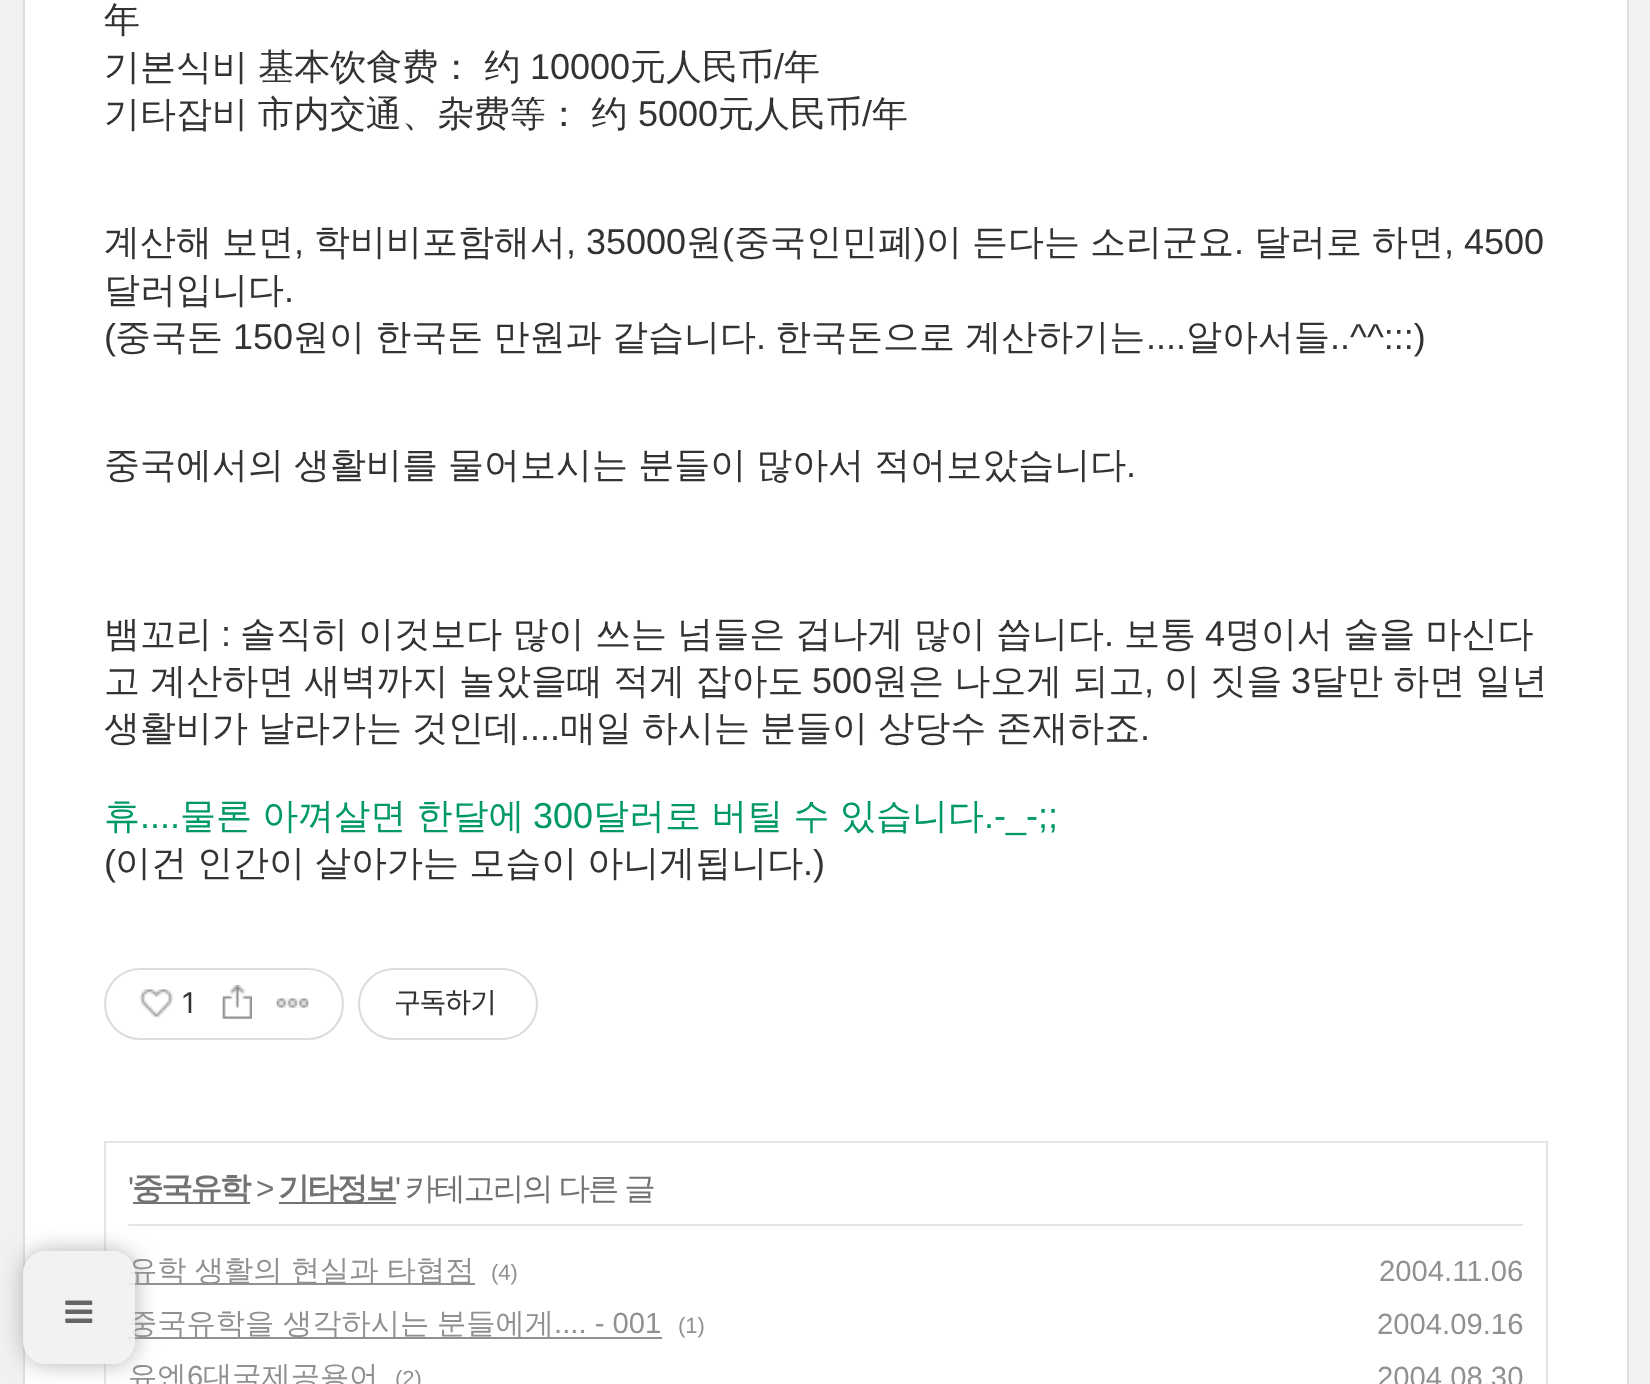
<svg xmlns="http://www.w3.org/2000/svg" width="1650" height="1384">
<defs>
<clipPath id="clip1"><path d="M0 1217h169v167h-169zm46 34h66c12.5 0 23 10.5 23 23v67c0 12.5-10.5 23-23 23h-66c-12.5 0-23-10.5-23-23v-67c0-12.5 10.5-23 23-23z" clip-rule="evenodd"/></clipPath>
</defs>
<rect width="100%" height="100%" fill="#f1f1f1"/>
<rect x="24" y="-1" width="1604" height="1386" fill="#fff" stroke="#ddd" stroke-width="2"/>
<rect x="105" y="1142" width="1442" height="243" fill="none" stroke="#e5e5e5" stroke-width="2"/>
<rect x="128" y="1224" width="1395" height="2" fill="#e5e5e5"/>
<rect x="128" y="1283" width="347" height="2" fill="#909090"/>
<rect x="128" y="1337" width="534" height="2" fill="#909090"/>
<g clip-path="url(#clip1)">
<rect x="23" y="1251" width="112" height="113" rx="23" fill="#aaaaaae6" filter="blur(11px)"/>
</g>
<text x="128" y="1280" word-spacing="-0.5" style="font-family:WenQuanYi Zen Hei;font-size:29.25px;font-weight:500;fill:#909090">유학 생활의 현실과 타협점</text>
<text x="128" y="1333" style="font-family:WenQuanYi Zen Hei;font-size:29.25px;font-weight:500;fill:#909090">중국유학을</text>
<rect x="23" y="1251" width="112" height="113" rx="23" fill="#f1f1f1e6"/>
<image x="65" y="1300" width="28" height="23" href="media/1.png"/>
<text x="104" y="32" style="font-family:WenQuanYi Zen Hei;font-size:36px;font-weight:500;fill:#333">年</text>
<text x="104" y="79" word-spacing="-0.5" style="font-family:WenQuanYi Zen Hei;font-size:36px;font-weight:500;fill:#333">기본식비 基本饮食费： 约</text>
<text x="530" y="79" style="font-family:Liberation Sans;font-size:36px;fill:#333">10000</text>
<text x="630" y="79" style="font-family:WenQuanYi Zen Hei;font-size:36px;font-weight:500;fill:#333">元人民币</text>
<text x="774" y="79" style="font-family:Liberation Sans;font-size:36px;fill:#333">/</text>
<text x="784" y="79" style="font-family:WenQuanYi Zen Hei;font-size:36px;font-weight:500;fill:#333">年</text>
<text x="104" y="126" word-spacing="-1" style="font-family:WenQuanYi Zen Hei;font-size:36px;font-weight:500;fill:#333">기타잡비 市内交通、杂费等： 约</text>
<text x="638" y="126" style="font-family:Liberation Sans;font-size:36px;fill:#333">5000</text>
<text x="718" y="126" style="font-family:WenQuanYi Zen Hei;font-size:36px;font-weight:500;fill:#333">元人民币</text>
<text x="862" y="126" style="font-family:Liberation Sans;font-size:36px;fill:#333">/</text>
<text x="872" y="126" style="font-family:WenQuanYi Zen Hei;font-size:36px;font-weight:500;fill:#333">年</text>
<text x="104" y="254" style="font-family:WenQuanYi Zen Hei;font-size:36px;font-weight:500;fill:#333">계산해</text>
<text x="222" y="254" style="font-family:WenQuanYi Zen Hei;font-size:36px;font-weight:500;fill:#333">보면</text>
<text x="294" y="254" style="font-family:Liberation Sans;font-size:36px;fill:#333">,</text>
<text x="314" y="254" style="font-family:WenQuanYi Zen Hei;font-size:36px;font-weight:500;fill:#333">학비비포함해서</text>
<text x="566" y="254" style="font-family:Liberation Sans;font-size:36px;fill:#333">, 35000</text>
<text x="686" y="254" style="font-family:WenQuanYi Zen Hei;font-size:36px;font-weight:500;fill:#333">원</text>
<text x="722" y="254" style="font-family:Liberation Sans;font-size:36px;fill:#333">(</text>
<text x="734" y="254" style="font-family:WenQuanYi Zen Hei;font-size:36px;font-weight:500;fill:#333">중국인민폐</text>
<text x="914" y="254" style="font-family:Liberation Sans;font-size:36px;fill:#333">)</text>
<text x="926" y="254" style="font-family:WenQuanYi Zen Hei;font-size:36px;font-weight:500;fill:#333">이</text>
<text x="972" y="254" style="font-family:WenQuanYi Zen Hei;font-size:36px;font-weight:500;fill:#333">든다는</text>
<text x="1090" y="254" style="font-family:WenQuanYi Zen Hei;font-size:36px;font-weight:500;fill:#333">소리군요</text>
<text x="1234" y="254" style="font-family:Liberation Sans;font-size:36px;fill:#333">.</text>
<text x="1254" y="254" style="font-family:WenQuanYi Zen Hei;font-size:36px;font-weight:500;fill:#333">달러로</text>
<text x="1372" y="254" style="font-family:WenQuanYi Zen Hei;font-size:36px;font-weight:500;fill:#333">하면</text>
<text x="1444" y="254" style="font-family:Liberation Sans;font-size:36px;fill:#333">, 4500</text>
<text x="104" y="302" style="font-family:WenQuanYi Zen Hei;font-size:36px;font-weight:500;fill:#333">달러입니다</text>
<text x="284" y="302" style="font-family:Liberation Sans;font-size:36px;fill:#333">.</text>
<text x="104" y="349" style="font-family:Liberation Sans;font-size:36px;fill:#333">(</text>
<text x="115" y="349" style="font-family:WenQuanYi Zen Hei;font-size:36px;font-weight:500;fill:#333">중국돈</text>
<text x="233" y="349" style="font-family:Liberation Sans;font-size:36px;fill:#333">150</text>
<text x="293" y="349" word-spacing="-0.5" style="font-family:WenQuanYi Zen Hei;font-size:36px;font-weight:500;fill:#333">원이 한국돈 만원과 같습니다</text>
<text x="756" y="349" style="font-family:Liberation Sans;font-size:36px;fill:#333">.</text>
<text x="775" y="349" word-spacing="-0.5" style="font-family:WenQuanYi Zen Hei;font-size:36px;font-weight:500;fill:#333">한국돈으로 계산하기는</text>
<text x="1146" y="349" style="font-family:Liberation Sans;font-size:36px;fill:#333">....</text>
<text x="1186" y="349" style="font-family:WenQuanYi Zen Hei;font-size:36px;font-weight:500;fill:#333">알아서들</text>
<text x="1330" y="349" style="font-family:Liberation Sans;font-size:36px;fill:#333">..^^:::)</text>
<text x="104" y="477" word-spacing="-0.75" style="font-family:WenQuanYi Zen Hei;font-size:36px;font-weight:500;fill:#333">중국에서의 생활비를 물어보시는 분들이 많아서 적어보았습니다</text>
<text x="1126" y="477" style="font-family:Liberation Sans;font-size:36px;fill:#333">.</text>
<text x="104" y="646" style="font-family:WenQuanYi Zen Hei;font-size:36px;font-weight:500;fill:#333">뱀꼬리</text>
<text x="221" y="646" style="font-family:Liberation Sans;font-size:36px;fill:#333">:</text>
<text x="240" y="646" word-spacing="-0.5" style="font-family:WenQuanYi Zen Hei;font-size:36px;font-weight:500;fill:#333">솔직히 이것보다 많이 쓰는 넘들은 겁나게 많이 씁니다</text>
<text x="1104" y="646" style="font-family:Liberation Sans;font-size:36px;fill:#333">.</text>
<text x="1124" y="646" style="font-family:WenQuanYi Zen Hei;font-size:36px;font-weight:500;fill:#333">보통</text>
<text x="1205" y="646" style="font-family:Liberation Sans;font-size:36px;fill:#333">4</text>
<text x="1225" y="646" word-spacing="-0.5" style="font-family:WenQuanYi Zen Hei;font-size:36px;font-weight:500;fill:#333">명이서 술을 마신다</text>
<text x="104" y="693" word-spacing="-0.5" style="font-family:WenQuanYi Zen Hei;font-size:36px;font-weight:500;fill:#333">고 계산하면 새벽까지 놀았을때 적게 잡아도</text>
<text x="812" y="693" style="font-family:Liberation Sans;font-size:36px;fill:#333">500</text>
<text x="872" y="693" word-spacing="-0.5" style="font-family:WenQuanYi Zen Hei;font-size:36px;font-weight:500;fill:#333">원은 나오게 되고</text>
<text x="1144" y="693" style="font-family:Liberation Sans;font-size:36px;fill:#333">,</text>
<text x="1164" y="693" word-spacing="-0.5" style="font-family:WenQuanYi Zen Hei;font-size:36px;font-weight:500;fill:#333">이 짓을</text>
<text x="1291" y="693" style="font-family:Liberation Sans;font-size:36px;fill:#333">3</text>
<text x="1311" y="693" word-spacing="-0.5" style="font-family:WenQuanYi Zen Hei;font-size:36px;font-weight:500;fill:#333">달만 하면 일년</text>
<text x="104" y="740" word-spacing="-0.75" style="font-family:WenQuanYi Zen Hei;font-size:36px;font-weight:500;fill:#333">생활비가 날라가는 것인데</text>
<text x="520" y="740" style="font-family:Liberation Sans;font-size:36px;fill:#333">....</text>
<text x="560" y="740" word-spacing="-0.75" style="font-family:WenQuanYi Zen Hei;font-size:36px;font-weight:500;fill:#333">매일 하시는 분들이 상당수 존재하죠</text>
<text x="1140" y="740" style="font-family:Liberation Sans;font-size:36px;fill:#333">.</text>
<text x="104" y="828" style="font-family:WenQuanYi Zen Hei;font-size:36px;font-weight:500;fill:#096">휴</text>
<text x="140" y="828" style="font-family:Liberation Sans;font-size:36px;fill:#096">....</text>
<text x="180" y="828" word-spacing="-0.5" style="font-family:WenQuanYi Zen Hei;font-size:36px;font-weight:500;fill:#096">물론 아껴살면 한달에</text>
<text x="533" y="828" style="font-family:Liberation Sans;font-size:36px;fill:#096">300</text>
<text x="593" y="828" word-spacing="-0.5" style="font-family:WenQuanYi Zen Hei;font-size:36px;font-weight:500;fill:#096">달러로 버틸 수 있습니다</text>
<text x="984" y="828" style="font-family:Liberation Sans;font-size:36px;fill:#096">.-_-;;</text>
<text x="104" y="875" style="font-family:Liberation Sans;font-size:36px;fill:#333">(</text>
<text x="115" y="875" word-spacing="-0.75" style="font-family:WenQuanYi Zen Hei;font-size:36px;font-weight:500;fill:#333">이건 인간이 살아가는 모습이 아니게됩니다</text>
<text x="803" y="875" style="font-family:Liberation Sans;font-size:36px;fill:#333">.)</text>
<rect x="105" y="969" width="238" height="70" rx="35" fill="none" stroke="#dcdcdc" stroke-width="2"/>
<image x="139" y="989" width="35" height="29" href="media/2.png"/>
<text x="182" y="1013" style="font-family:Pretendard;font-size:29.25px;fill:#333">1</text>
<image x="222" y="985" width="30" height="34" href="media/3.png"/>
<image x="276" y="998" width="33" height="10" href="media/4.png"/>
<rect x="359" y="969" width="178" height="70" rx="35" fill="none" stroke="#dcdcdc" stroke-width="2"/>
<text x="395" y="1013" style="font-family:Pretendard;font-size:29.25px;fill:#333">구독하기</text>
<text x="128" y="1199" style="font-family:Liberation Sans;font-size:31.5px;letter-spacing:-2.25px;fill:#737373">'</text>
<rect x="133" y="1202" width="117" height="2" fill="#737373"/>
<text x="132" y="1199" style="font-family:WenQuanYi Zen Hei;font-size:31.5px;font-weight:bold;letter-spacing:-2.25px;fill:#737373">중국유학</text>
<text x="256" y="1199" style="font-family:Liberation Sans;font-size:31.5px;letter-spacing:-2.25px;fill:#737373">&gt;</text>
<rect x="279" y="1202" width="117" height="2" fill="#737373"/>
<text x="278" y="1199" style="font-family:WenQuanYi Zen Hei;font-size:31.5px;font-weight:bold;letter-spacing:-2.25px;fill:#737373">기타정보</text>
<text x="395" y="1199" style="font-family:Liberation Sans;font-size:31.5px;letter-spacing:-2.25px;fill:#737373">'</text>
<text x="405" y="1199" style="font-family:WenQuanYi Zen Hei;font-size:31.5px;font-weight:500;letter-spacing:-2.25px;fill:#737373">카테고리의 다른 글</text>
<text x="491" y="1280" style="font-family:Liberation Sans;font-size:22px;fill:#909090">(4)</text>
<text x="1379" y="1281" style="font-family:Liberation Sans;font-size:29.25px;fill:#909090">2004.11.06</text>
<text x="283" y="1333" style="font-family:WenQuanYi Zen Hei;font-size:29.25px;font-weight:500;fill:#909090">생각하시는</text>
<text x="437" y="1333" style="font-family:WenQuanYi Zen Hei;font-size:29.25px;font-weight:500;fill:#909090">분들에게</text>
<text x="554" y="1333" style="font-family:Liberation Sans;font-size:29.25px;fill:#909090">.... - 001</text>
<text x="678" y="1333" style="font-family:Liberation Sans;font-size:22px;fill:#909090">(1)</text>
<text x="1377" y="1334" style="font-family:Liberation Sans;font-size:29.25px;fill:#909090">2004.09.16</text>
<text x="128" y="1386" style="font-family:WenQuanYi Zen Hei;font-size:29.25px;font-weight:500;fill:#909090">유엔</text>
<text x="187" y="1386" style="font-family:Liberation Sans;font-size:29.25px;fill:#909090">6</text>
<text x="203" y="1386" style="font-family:WenQuanYi Zen Hei;font-size:29.25px;font-weight:500;fill:#909090">대국제공용어</text>
<text x="395" y="1386" style="font-family:Liberation Sans;font-size:22px;fill:#909090">(2)</text>
<text x="1377" y="1387" style="font-family:Liberation Sans;font-size:29.25px;fill:#909090">2004.08.30</text>
</svg>
